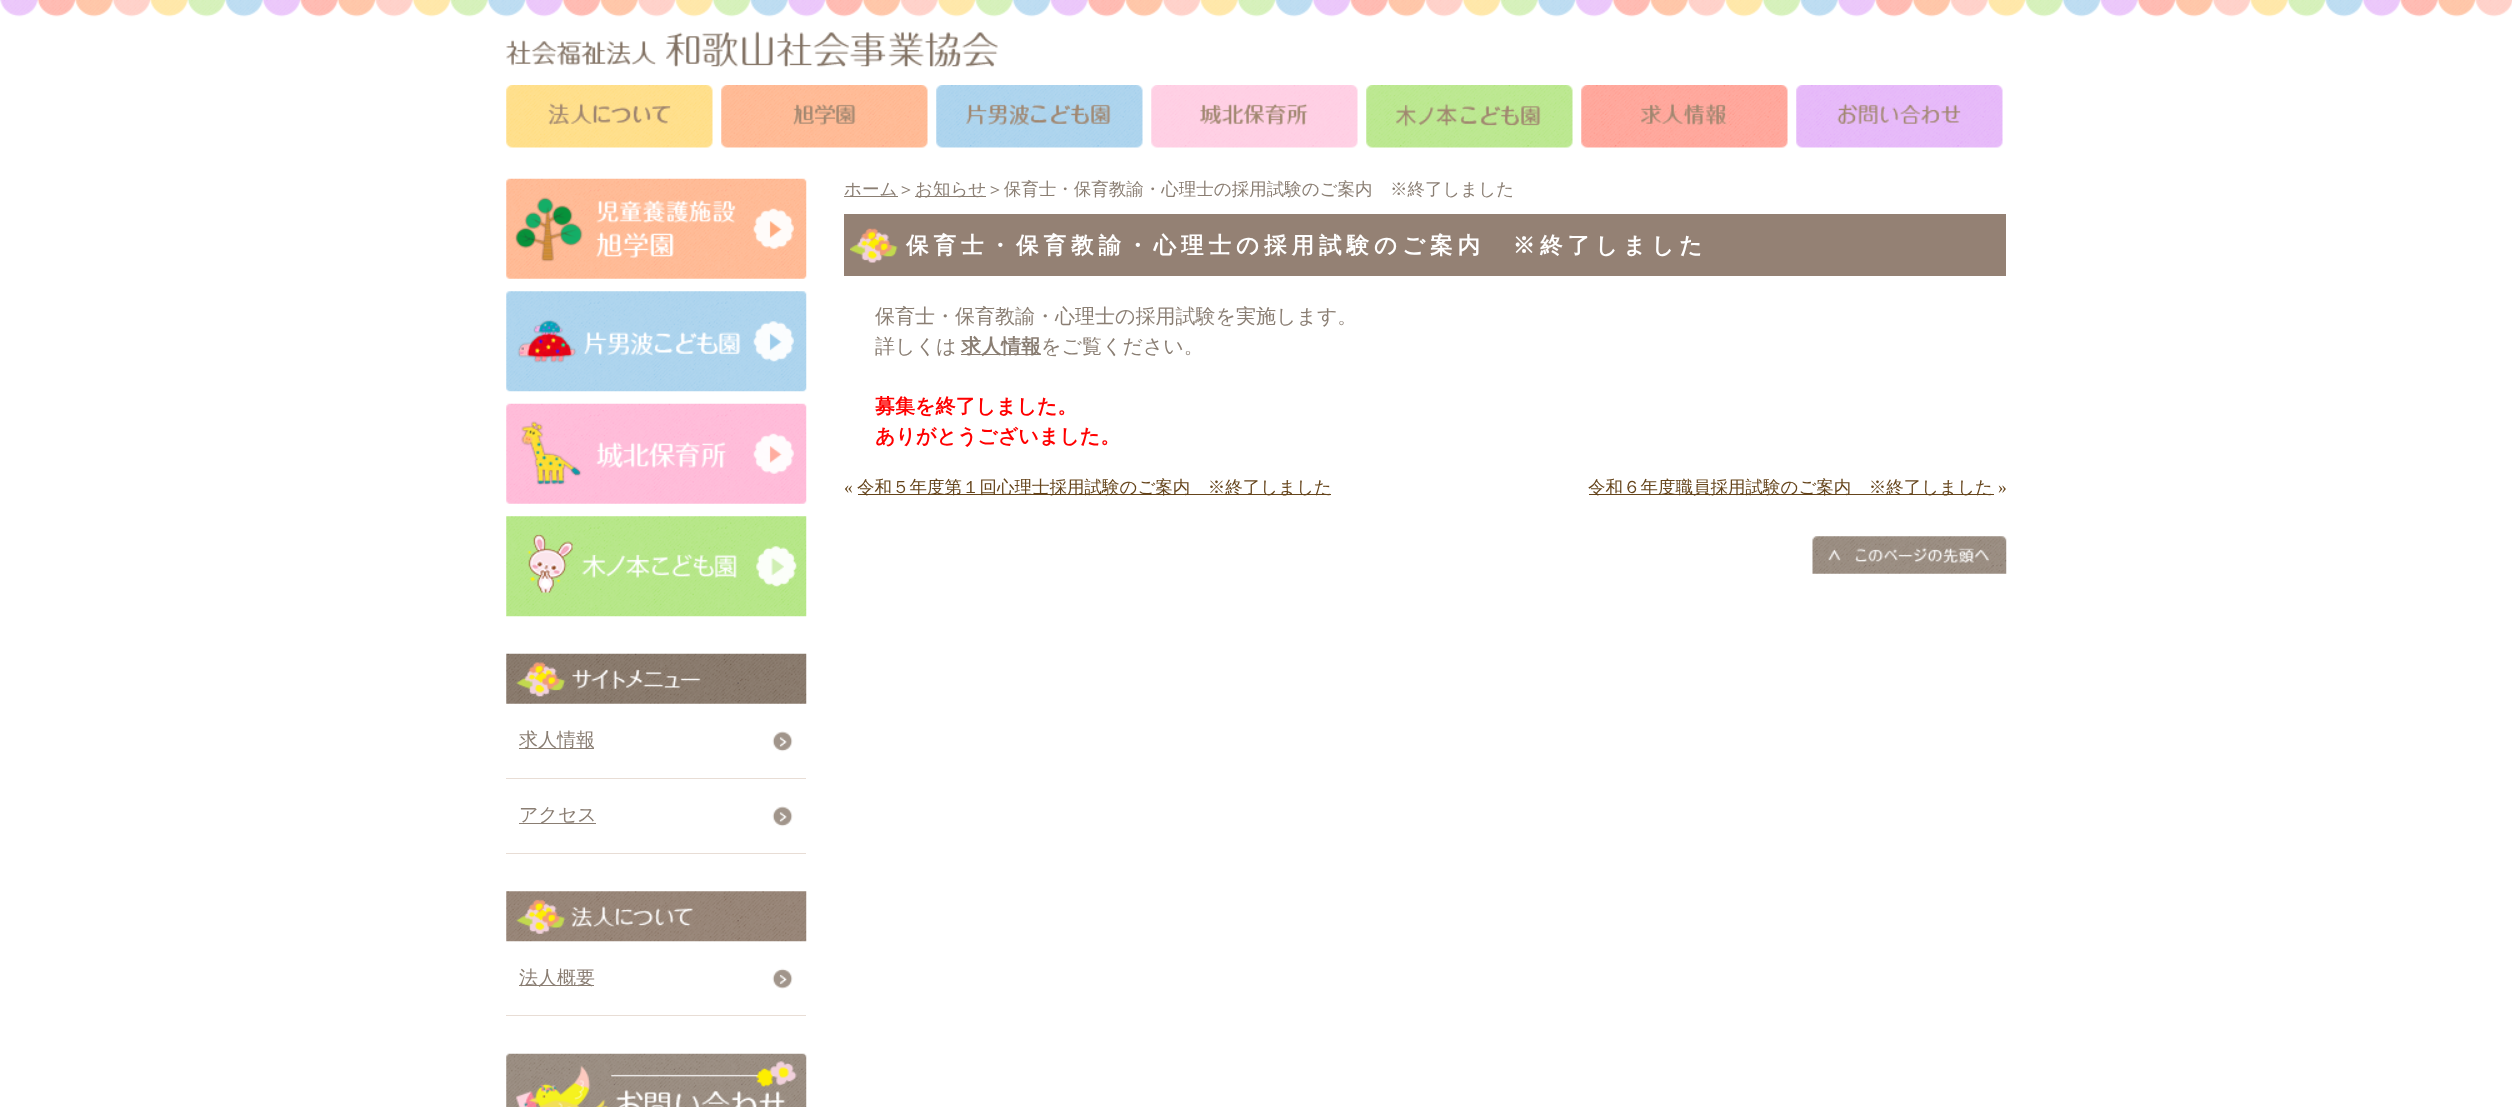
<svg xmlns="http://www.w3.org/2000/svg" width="2512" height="1107">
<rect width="100%" height="100%" fill="#fff"/>
<image x="0" y="0" width="2512" height="17" href="media/1.png"/>
<image x="506" y="31" width="492" height="36" href="media/2.png"/>
<image x="506" y="85" width="207" height="63" href="media/3.png"/>
<image x="721" y="85" width="207" height="63" href="media/4.png"/>
<image x="936" y="85" width="207" height="63" href="media/5.png"/>
<image x="1151" y="85" width="207" height="63" href="media/6.png"/>
<image x="1366" y="85" width="207" height="63" href="media/7.png"/>
<image x="1581" y="85" width="207" height="63" href="media/8.png"/>
<image x="1796" y="85" width="207" height="63" href="media/9.png"/>
<rect x="844" y="196" width="54" height="1" fill="#8a7e73"/>
<text x="844" y="195" style="font-family:WenQuanYi Zen Hei;font-size:17.5px;font-weight:500;fill:#8a7e73">ホーム＞</text>
<rect x="915" y="196" width="71" height="1" fill="#8a7e73"/>
<text x="915" y="195" style="font-family:WenQuanYi Zen Hei;font-size:17.5px;font-weight:500;fill:#8a7e73">お知らせ＞保育士・保育教諭・心理士の採用試験のご案内　※終了しました</text>
<rect x="844" y="214" width="1162" height="62" fill="#948174"/>
<image x="850" y="228" width="48" height="35" href="media/10.png"/>
<text x="906" y="253" style="font-family:WenQuanYi Zen Hei;font-size:22.5px;font-weight:bold;letter-spacing:5px;fill:#fff">保育士・保育教諭・心理士の採用試験のご案内　※終了しました</text>
<text x="875" y="323" style="font-family:WenQuanYi Zen Hei;font-size:20px;font-weight:500;fill:#8a7e73">保育士・保育教諭・心理士の採用試験を実施します。</text>
<text x="875" y="353" style="font-family:WenQuanYi Zen Hei;font-size:20px;font-weight:500;fill:#8a7e73">詳しくは</text>
<rect x="961" y="354" width="80" height="1" fill="#8a7e73"/>
<text x="961" y="353" style="font-family:WenQuanYi Zen Hei;font-size:20px;font-weight:bold;fill:#8a7e73">求人情報</text>
<text x="1041" y="353" style="font-family:WenQuanYi Zen Hei;font-size:20px;font-weight:500;fill:#8a7e73">をご覧ください。</text>
<text x="875" y="413" style="font-family:WenQuanYi Zen Hei;font-size:20px;font-weight:bold;fill:#f00">募集を終了しました。</text>
<text x="875" y="443" style="font-family:WenQuanYi Zen Hei;font-size:20px;font-weight:bold;fill:#f00">ありがとうございました。</text>
<text x="844" y="493" style="font-family:Liberation Serif;font-size:17.5px;fill:#65441b">«</text>
<rect x="858" y="494" width="473" height="1" fill="#65441b"/>
<text x="857" y="493" style="font-family:WenQuanYi Zen Hei;font-size:17.5px;font-weight:500;fill:#65441b">令和５年度第１回心理士採用試験のご案内　※終了しました</text>
<rect x="1589" y="494" width="405" height="1" fill="#65441b"/>
<text x="1588" y="493" style="font-family:WenQuanYi Zen Hei;font-size:17.5px;font-weight:500;fill:#65441b">令和６年度職員採用試験のご案内　※終了しました</text>
<text x="1998" y="493" style="font-family:Liberation Serif;font-size:17.5px;fill:#65441b">»</text>
<image x="1812" y="536" width="195" height="38" href="media/11.png"/>
<image x="506" y="178" width="301" height="101" href="media/12.png"/>
<image x="506" y="291" width="301" height="101" href="media/13.png"/>
<image x="506" y="403" width="301" height="101" href="media/14.png"/>
<image x="506" y="516" width="301" height="101" href="media/15.png"/>
<image x="506" y="653" width="301" height="51" href="media/16.png"/>
<image x="772" y="731" width="21" height="21" href="media/17.png"/>
<rect x="506" y="778" width="300" height="1" fill="#e8ddd5"/>
<rect x="519" y="748" width="75" height="1" fill="#8a7e73"/>
<text x="519" y="746" style="font-family:WenQuanYi Zen Hei;font-size:19px;font-weight:500;fill:#8a7e73">求人情報</text>
<image x="772" y="806" width="21" height="21" href="media/17.png"/>
<rect x="506" y="853" width="300" height="1" fill="#e8ddd5"/>
<rect x="519" y="823" width="77" height="1" fill="#8a7e73"/>
<text x="519" y="821" style="font-family:WenQuanYi Zen Hei;font-size:19px;font-weight:500;fill:#8a7e73">アクセス</text>
<image x="506" y="891" width="301" height="51" href="media/18.png"/>
<image x="772" y="968" width="21" height="21" href="media/19.png"/>
<rect x="506" y="1015" width="300" height="1" fill="#e8ddd5"/>
<rect x="519" y="985" width="75" height="1" fill="#8a7e73"/>
<text x="519" y="984" style="font-family:WenQuanYi Zen Hei;font-size:19px;font-weight:500;fill:#8a7e73">法人概要</text>
<image x="506" y="1053" width="301" height="54" href="media/20.png"/>
</svg>
